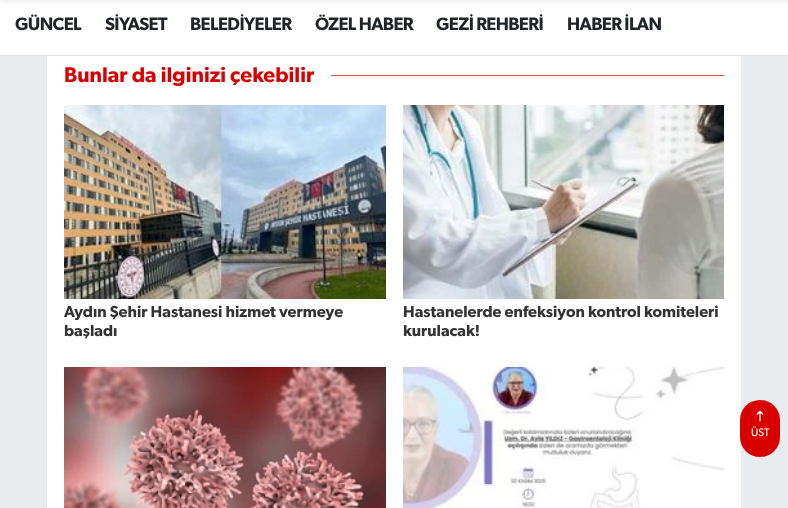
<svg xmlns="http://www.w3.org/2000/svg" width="788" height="508">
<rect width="100%" height="100%" fill="#e9ecef"/>
<rect width="788" height="55" fill="#fff"/>
<rect y="-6" width="788" height="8" fill="#00000012" filter="blur(2px)"/>
<rect y="55" width="788" height="1" fill="#e6e6e6"/>
<text x="15" y="30" style="font-family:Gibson;font-size:18px;font-weight:600;letter-spacing:-0.6px;fill:#212529">GÜNCEL</text>
<text x="105" y="30" style="font-family:Gibson;font-size:18px;font-weight:600;letter-spacing:-0.6px;fill:#212529">SİYASET</text>
<text x="190" y="30" style="font-family:Gibson;font-size:18px;font-weight:600;letter-spacing:-0.6px;fill:#212529">BELEDİYELER</text>
<text x="315" y="30" style="font-family:Gibson;font-size:18px;font-weight:600;letter-spacing:-0.6px;fill:#212529">ÖZEL HABER</text>
<text x="436" y="30" style="font-family:Gibson;font-size:18px;font-weight:600;letter-spacing:-0.6px;fill:#212529">GEZİ REHBERİ</text>
<text x="567" y="30" style="font-family:Gibson;font-size:18px;font-weight:600;letter-spacing:-0.6px;fill:#212529">HABER İLAN</text>
<rect x="47" y="56" width="694" height="452" fill="#fff"/>
<text x="64" y="82" style="font-family:Gibson;font-size:21.25px;font-weight:600;fill:#d80100">Bunlar da ilginizi çekebilir</text>
<rect x="331" y="75" width="393" height="1" fill="#e44d4d"/>
<image x="64" y="105" width="322" height="194" href="media/1.png"/>
<text x="64" y="317" style="font-family:Gibson;font-size:16px;font-weight:600;fill:#333">Aydın Şehir Hastanesi hizmet vermeye</text>
<text x="64" y="336" style="font-family:Gibson;font-size:16px;font-weight:600;fill:#333">başladı</text>
<image x="403" y="105" width="321" height="194" href="media/2.png"/>
<text x="403" y="317" style="font-family:Gibson;font-size:16px;font-weight:600;fill:#333">Hastanelerde enfeksiyon kontrol komiteleri</text>
<text x="403" y="336" style="font-family:Gibson;font-size:16px;font-weight:600;fill:#333">kurulacak!</text>
<image x="64" y="367" width="322" height="141" href="media/3.png"/>
<image x="403" y="367" width="321" height="141" href="media/4.png"/>
<rect x="740" y="400" width="40" height="57" rx="20" fill="#d80100"/>
<image x="756" y="410" width="8" height="12" href="media/5.png"/>
<text x="751" y="436" style="font-family:Gibson;font-size:11px;fill:#fff">ÜST</text>
</svg>
